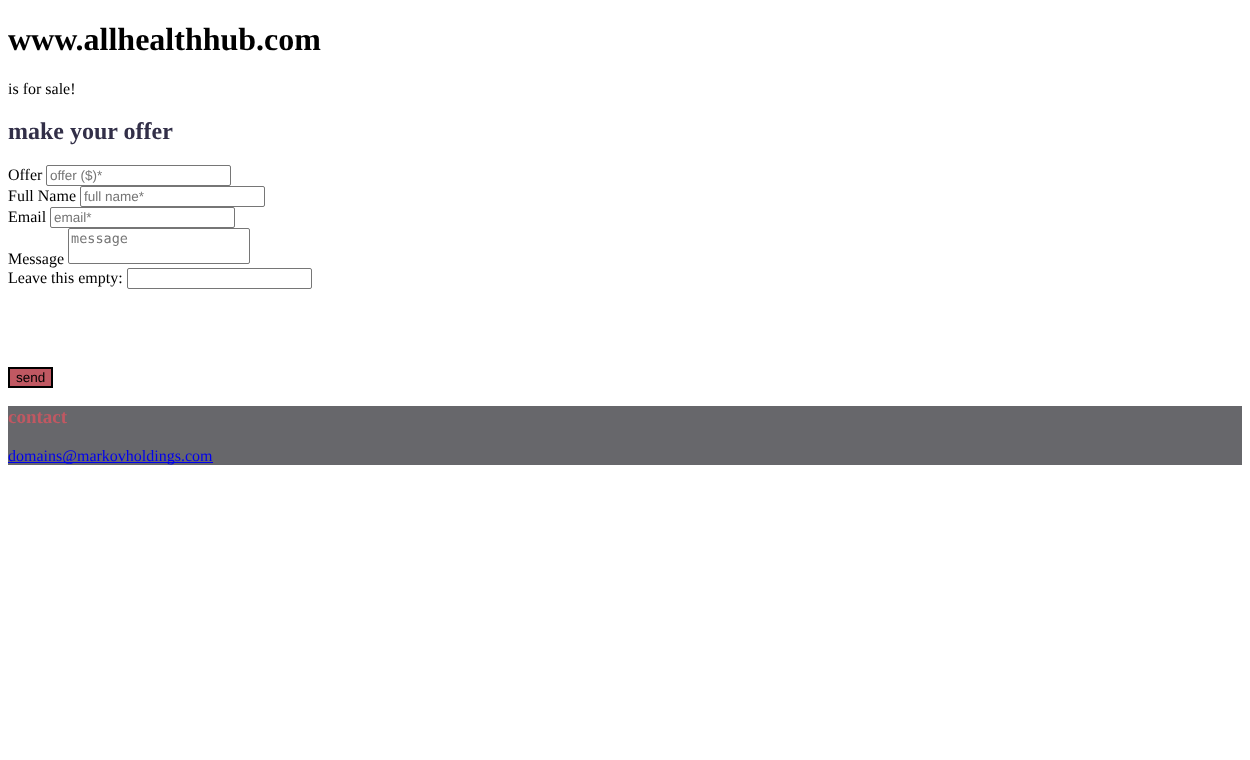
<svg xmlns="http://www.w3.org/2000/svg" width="1250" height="760">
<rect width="100%" height="100%" fill="#fff"/>
<text x="8" y="50" style="font-family:Liberation Serif;font-size:32px;font-weight:bold;fill:#000">www.allhealthhub.com</text>
<text x="8" y="94" style="font-family:Liberation Serif;font-size:16px;fill:#000">is for sale!</text>
<text x="8" y="139" style="font-family:Liberation Serif;font-size:24px;font-weight:bold;fill:#322f48">make your offer</text>
<text x="8" y="180" style="font-family:Liberation Serif;font-size:16px;fill:#000">Offer</text>
<rect x="46.5" y="165.5" width="184" height="20" rx="1.5" fill="none" stroke="#767676"/>
<text x="50" y="180" style="font-family:Liberation Sans;font-size:13.5px;fill:#757575">offer ($)*</text>
<text x="8" y="201" style="font-family:Liberation Serif;font-size:16px;fill:#000">Full Name</text>
<rect x="80.5" y="186.5" width="184" height="20" rx="1.5" fill="none" stroke="#767676"/>
<text x="84" y="201" style="font-family:Liberation Sans;font-size:13.5px;fill:#757575">full name*</text>
<text x="8" y="222" style="font-family:Liberation Serif;font-size:16px;fill:#000">Email</text>
<rect x="50.5" y="207.5" width="184" height="20" rx="1.5" fill="none" stroke="#767676"/>
<text x="54" y="222" style="font-family:Liberation Sans;font-size:13.5px;fill:#757575">email*</text>
<rect x="68.5" y="228.5" width="181" height="35" rx="1.5" fill="none" stroke="#767676"/>
<text x="71" y="243" style="font-family:DejaVu Sans Mono;font-size:13.5px;fill:#757575">message</text>
<text x="8" y="264" style="font-family:Liberation Serif;font-size:16px;fill:#000">Message</text>
<text x="8" y="283" style="font-family:Liberation Serif;font-size:16px;fill:#000">Leave this empty:</text>
<rect x="127.5" y="268.5" width="184" height="20" rx="1.5" fill="none" stroke="#767676"/>
<rect x="9" y="368" width="43" height="19" fill="#c05862" stroke="#000" stroke-width="2"/>
<text x="16" y="382" style="font-family:Liberation Sans;font-size:13.5px;fill:#000">send</text>
<rect x="8" y="406" width="1234" height="59" fill="#67676b"/>
<text x="8" y="423" style="font-family:Liberation Serif;font-size:19px;font-weight:bold;fill:#c05862">contact</text>
<rect x="8" y="462" width="205" height="1" fill="#00e"/>
<text x="8" y="461" style="font-family:Liberation Serif;font-size:16px;fill:#00e">domains@markovholdings.com</text>
</svg>
